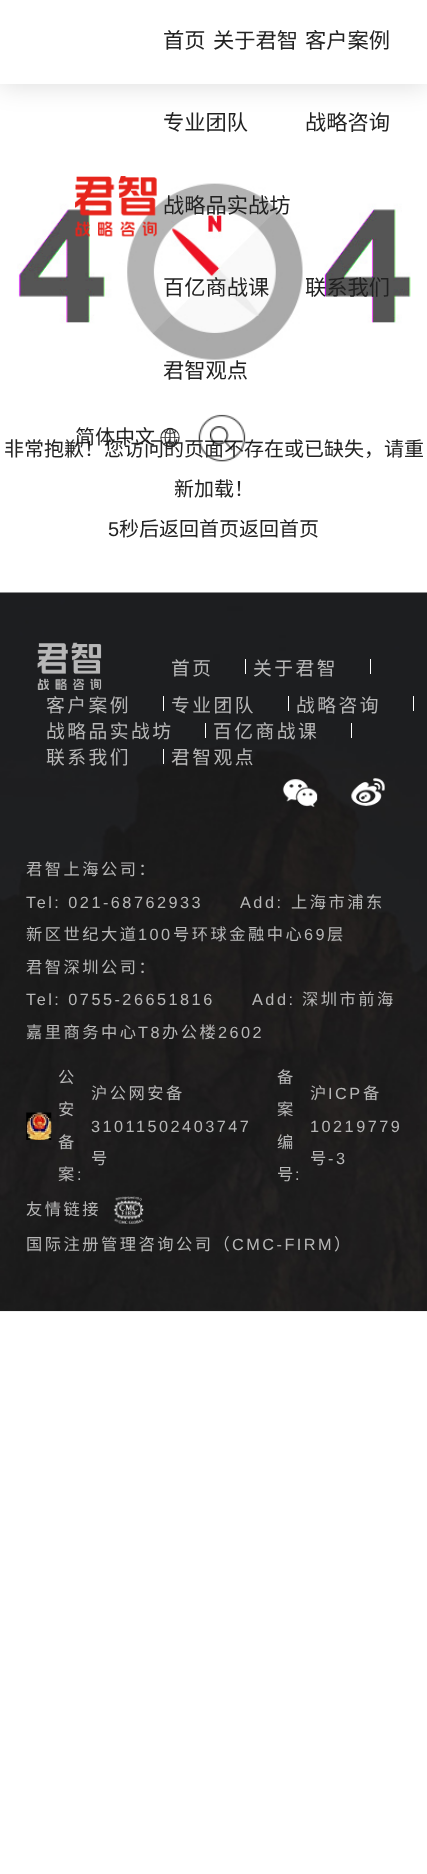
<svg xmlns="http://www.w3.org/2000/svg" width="427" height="1874">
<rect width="100%" height="100%" fill="#fff"/>
<rect width="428" height="84" fill="#00000026" filter="blur(14px)"/>
<rect width="427" height="84" fill="#fff"/>
<image x="17" y="183" width="394" height="177" href="media/4.png"/>
<image x="75" y="176" width="82" height="61" href="media/1.png"/>
<text x="163" y="48" style="font-family:Noto Sans CJK SC;font-size:21.25px;fill:#222">首页</text>
<text x="213" y="48" style="font-family:Noto Sans CJK SC;font-size:21.25px;fill:#222">关于君智</text>
<text x="305" y="48" style="font-family:Noto Sans CJK SC;font-size:21.25px;fill:#222">客户案例</text>
<text x="163" y="130" style="font-family:Noto Sans CJK SC;font-size:21.25px;fill:#222">专业团队</text>
<text x="305" y="130" style="font-family:Noto Sans CJK SC;font-size:21.25px;fill:#222">战略咨询</text>
<text x="163" y="213" style="font-family:Noto Sans CJK SC;font-size:21.25px;fill:#222">战略品实战坊</text>
<text x="163" y="295" style="font-family:Noto Sans CJK SC;font-size:21.25px;fill:#222">百亿商战课</text>
<text x="305" y="295" style="font-family:Noto Sans CJK SC;font-size:21.25px;fill:#222">联系我们</text>
<text x="163" y="378" style="font-family:Noto Sans CJK SC;font-size:21.25px;fill:#222">君智观点</text>
<text x="75" y="444" style="font-family:Noto Sans CJK SC;font-size:20px;fill:#222">简体中文</text>
<text x="4" y="456" style="font-family:Noto Sans CJK SC;font-size:20px;fill:#222">非常抱歉！您访问的页面不存在或已缺失，请重</text>
<image x="160" y="427" width="20" height="21" href="media/2.png"/>
<image x="198" y="414" width="48" height="48" href="media/3.png"/>
<text x="174" y="496" style="font-family:Noto Sans CJK SC;font-size:20px;fill:#222">新加载！</text>
<text x="108" y="536" style="font-family:Liberation Sans;font-size:20px;fill:#222">5</text>
<text x="119" y="536" style="font-family:Noto Sans CJK SC;font-size:20px;fill:#222">秒后返回首页返回首页</text>
<image x="0" y="592" width="427" height="720" href="media/5.png"/>
<image x="37" y="642" width="65" height="48" href="media/6.png"/>
<text x="171" y="675" style="font-family:Noto Sans CJK SC;font-size:18.75px;letter-spacing:2.5px;fill:#b7b7b7">首页</text>
<rect x="245" y="659" width="1" height="15" fill="#fff"/>
<text x="253" y="675" style="font-family:Noto Sans CJK SC;font-size:18.75px;letter-spacing:2.5px;fill:#b7b7b7">关于君智</text>
<rect x="370" y="659" width="1" height="15" fill="#fff"/>
<text x="46" y="712" style="font-family:Noto Sans CJK SC;font-size:18.75px;letter-spacing:2.5px;fill:#b7b7b7">客户案例</text>
<rect x="163" y="696" width="1" height="15" fill="#fff"/>
<text x="171" y="712" style="font-family:Noto Sans CJK SC;font-size:18.75px;letter-spacing:2.5px;fill:#b7b7b7">专业团队</text>
<rect x="288" y="696" width="1" height="15" fill="#fff"/>
<text x="296" y="712" style="font-family:Noto Sans CJK SC;font-size:18.75px;letter-spacing:2.5px;fill:#b7b7b7">战略咨询</text>
<rect x="413" y="696" width="1" height="15" fill="#fff"/>
<text x="46" y="738" style="font-family:Noto Sans CJK SC;font-size:18.75px;letter-spacing:2.5px;fill:#b7b7b7">战略品实战坊</text>
<rect x="205" y="723" width="1" height="15" fill="#fff"/>
<text x="213" y="738" style="font-family:Noto Sans CJK SC;font-size:18.75px;letter-spacing:2.5px;fill:#b7b7b7">百亿商战课</text>
<rect x="351" y="723" width="1" height="15" fill="#fff"/>
<text x="46" y="764" style="font-family:Noto Sans CJK SC;font-size:18.75px;letter-spacing:2.5px;fill:#b7b7b7">联系我们</text>
<rect x="163" y="749" width="1" height="15" fill="#fff"/>
<text x="171" y="764" style="font-family:Noto Sans CJK SC;font-size:18.75px;letter-spacing:2.5px;fill:#b7b7b7">君智观点</text>
<image x="282" y="779" width="36" height="28" href="media/7.png"/>
<image x="351" y="778" width="34" height="28" href="media/8.png"/>
<text x="26" y="875" style="font-family:Noto Sans CJK SC;font-size:16.25px;letter-spacing:2.5px;fill:#b7b7b7">君智上海公司：</text>
<text x="26" y="908" style="font-family:Liberation Sans;font-size:16.25px;letter-spacing:2.5px;fill:#b7b7b7">Tel: 021-68762933</text>
<text x="240" y="908" style="font-family:Liberation Sans;font-size:16.25px;letter-spacing:2.5px;fill:#b7b7b7">Add:</text>
<text x="291" y="908" style="font-family:Noto Sans CJK SC;font-size:16.25px;letter-spacing:2.5px;fill:#b7b7b7">上海市浦东</text>
<text x="26" y="940" style="font-family:Noto Sans CJK SC;font-size:16.25px;letter-spacing:2.5px;fill:#b7b7b7">新区世纪大道</text>
<text x="138" y="940" style="font-family:Liberation Sans;font-size:16.25px;letter-spacing:2.5px;fill:#b7b7b7">100</text>
<text x="173" y="940" style="font-family:Noto Sans CJK SC;font-size:16.25px;letter-spacing:2.5px;fill:#b7b7b7">号环球金融中心</text>
<text x="304" y="940" style="font-family:Liberation Sans;font-size:16.25px;letter-spacing:2.5px;fill:#b7b7b7">69</text>
<text x="327" y="940" style="font-family:Noto Sans CJK SC;font-size:16.25px;letter-spacing:2.5px;fill:#b7b7b7">层</text>
<text x="26" y="973" style="font-family:Noto Sans CJK SC;font-size:16.25px;letter-spacing:2.5px;fill:#b7b7b7">君智深圳公司：</text>
<text x="26" y="1005" style="font-family:Liberation Sans;font-size:16.25px;letter-spacing:2.5px;fill:#b7b7b7">Tel: 0755-26651816</text>
<text x="252" y="1005" style="font-family:Liberation Sans;font-size:16.25px;letter-spacing:2.5px;fill:#b7b7b7">Add:</text>
<text x="302" y="1005" style="font-family:Noto Sans CJK SC;font-size:16.25px;letter-spacing:2.5px;fill:#b7b7b7">深圳市前海</text>
<text x="26" y="1038" style="font-family:Noto Sans CJK SC;font-size:16.25px;letter-spacing:2.5px;fill:#b7b7b7">嘉里商务中心</text>
<text x="138" y="1038" style="font-family:Liberation Sans;font-size:16.25px;letter-spacing:2.5px;fill:#b7b7b7">T8</text>
<text x="162" y="1038" style="font-family:Noto Sans CJK SC;font-size:16.25px;letter-spacing:2.5px;fill:#b7b7b7">办公楼</text>
<text x="218" y="1038" style="font-family:Liberation Sans;font-size:16.25px;letter-spacing:2.5px;fill:#b7b7b7">2602</text>
<text x="58" y="1083" style="font-family:Noto Sans CJK SC;font-size:16.25px;letter-spacing:2.5px;fill:#b7b7b7">公</text>
<text x="277" y="1083" style="font-family:Noto Sans CJK SC;font-size:16.25px;letter-spacing:2.5px;fill:#b7b7b7">备</text>
<text x="58" y="1115" style="font-family:Noto Sans CJK SC;font-size:16.25px;letter-spacing:2.5px;fill:#b7b7b7">安</text>
<text x="91" y="1099" style="font-family:Noto Sans CJK SC;font-size:16.25px;letter-spacing:2.5px;fill:#b7b7b7">沪公网安备</text>
<text x="91" y="1132" style="font-family:Liberation Sans;font-size:16.25px;letter-spacing:2.5px;fill:#b7b7b7">31011502403747</text>
<text x="91" y="1164" style="font-family:Noto Sans CJK SC;font-size:16.25px;letter-spacing:2.5px;fill:#b7b7b7">号</text>
<text x="277" y="1115" style="font-family:Noto Sans CJK SC;font-size:16.25px;letter-spacing:2.5px;fill:#b7b7b7">案</text>
<text x="310" y="1099" style="font-family:Noto Sans CJK SC;font-size:16.25px;letter-spacing:2.5px;fill:#b7b7b7">沪</text>
<text x="328" y="1099" style="font-family:Liberation Sans;font-size:16.25px;letter-spacing:2.5px;fill:#b7b7b7">ICP</text>
<text x="363" y="1099" style="font-family:Noto Sans CJK SC;font-size:16.25px;letter-spacing:2.5px;fill:#b7b7b7">备</text>
<text x="310" y="1132" style="font-family:Liberation Sans;font-size:16.25px;letter-spacing:2.5px;fill:#b7b7b7">10219779</text>
<text x="310" y="1164" style="font-family:Noto Sans CJK SC;font-size:16.25px;letter-spacing:2.5px;fill:#b7b7b7">号</text>
<text x="328" y="1164" style="font-family:Liberation Sans;font-size:16.25px;letter-spacing:2.5px;fill:#b7b7b7">-3</text>
<image x="26" y="1112" width="26" height="28" href="media/9.png"/>
<text x="58" y="1148" style="font-family:Noto Sans CJK SC;font-size:16.25px;letter-spacing:2.5px;fill:#b7b7b7">备</text>
<text x="277" y="1148" style="font-family:Noto Sans CJK SC;font-size:16.25px;letter-spacing:2.5px;fill:#b7b7b7">编</text>
<text x="58" y="1180" style="font-family:Noto Sans CJK SC;font-size:16.25px;letter-spacing:2.5px;fill:#b7b7b7">案</text>
<text x="77" y="1180" style="font-family:Liberation Sans;font-size:16.25px;letter-spacing:2.5px;fill:#b7b7b7">:</text>
<text x="277" y="1180" style="font-family:Noto Sans CJK SC;font-size:16.25px;letter-spacing:2.5px;fill:#b7b7b7">号</text>
<text x="295" y="1180" style="font-family:Liberation Sans;font-size:16.25px;letter-spacing:2.5px;fill:#b7b7b7">:</text>
<text x="26" y="1215" style="font-family:Noto Sans CJK SC;font-size:16.25px;letter-spacing:2.5px;fill:#b7b7b7">友情链接</text>
<image x="113" y="1196" width="31" height="28" href="media/10.png"/>
<text x="26" y="1250" style="font-family:Noto Sans CJK SC;font-size:16.25px;letter-spacing:2.5px;fill:#b7b7b7">国际注册管理咨询公司（</text>
<text x="232" y="1250" style="font-family:Liberation Sans;font-size:16.25px;letter-spacing:2.5px;fill:#b7b7b7">CMC-FIRM</text>
<text x="334" y="1250" style="font-family:Noto Sans CJK SC;font-size:16.25px;letter-spacing:2.5px;fill:#b7b7b7">）</text>
</svg>
